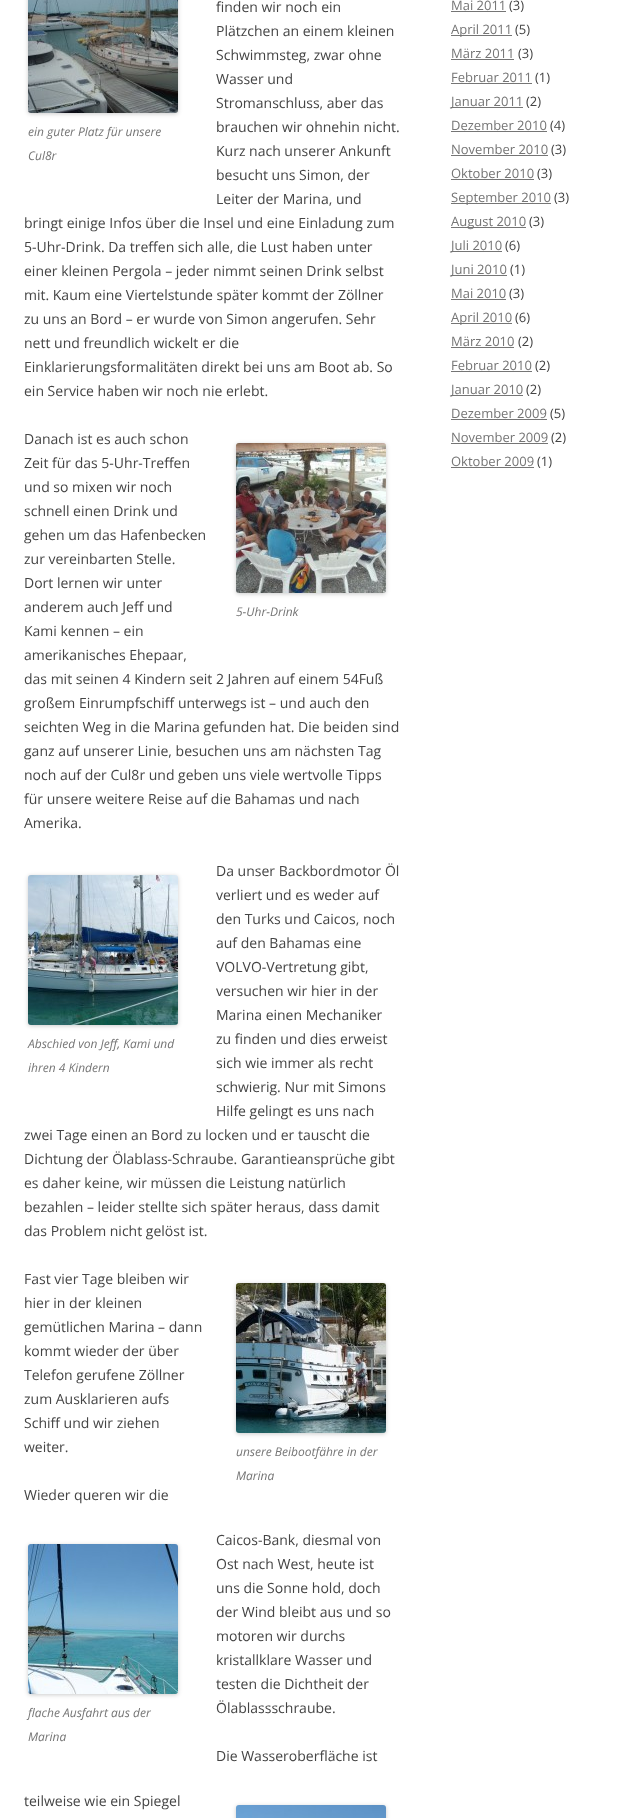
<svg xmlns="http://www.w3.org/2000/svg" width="625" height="1818">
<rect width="100%" height="100%" fill="#fff"/>
<text x="216" y="12" style="font-family:Open Sans;font-size:14px;fill:#444">finden wir noch ein</text>
<text x="216" y="36" style="font-family:Open Sans;font-size:14px;fill:#444">Plätzchen an einem kleinen</text>
<text x="216" y="60" style="font-family:Open Sans;font-size:14px;fill:#444">Schwimmsteg, zwar ohne</text>
<text x="216" y="84" style="font-family:Open Sans;font-size:14px;fill:#444">Wasser und</text>
<text x="216" y="108" style="font-family:Open Sans;font-size:14px;fill:#444">Stromanschluss, aber das</text>
<text x="216" y="132" style="font-family:Open Sans;font-size:14px;fill:#444">brauchen wir ohnehin nicht.</text>
<text x="216" y="156" style="font-family:Open Sans;font-size:14px;fill:#444">Kurz nach unserer Ankunft</text>
<text x="216" y="180" style="font-family:Open Sans;font-size:14px;fill:#444">besucht uns Simon, der</text>
<text x="216" y="204" style="font-family:Open Sans;font-size:14px;fill:#444">Leiter der Marina, und</text>
<text x="24" y="228" style="font-family:Open Sans;font-size:14px;fill:#444">bringt einige Infos über die Insel und eine Einladung zum</text>
<text x="24" y="252" style="font-family:Open Sans;font-size:14px;fill:#444">5-Uhr-Drink. Da treffen sich alle, die Lust haben unter</text>
<text x="24" y="276" style="font-family:Open Sans;font-size:14px;fill:#444">einer kleinen Pergola – jeder nimmt seinen Drink selbst</text>
<text x="24" y="300" style="font-family:Open Sans;font-size:14px;fill:#444">mit. Kaum eine Viertelstunde später kommt der Zöllner</text>
<text x="24" y="324" style="font-family:Open Sans;font-size:14px;fill:#444">zu uns an Bord – er wurde von Simon angerufen. Sehr</text>
<text x="24" y="348" style="font-family:Open Sans;font-size:14px;fill:#444">nett und freundlich wickelt er die</text>
<text x="24" y="372" style="font-family:Open Sans;font-size:14px;fill:#444">Einklarierungsformalitäten direkt bei uns am Boot ab. So</text>
<text x="24" y="396" style="font-family:Open Sans;font-size:14px;fill:#444">ein Service haben wir noch nie erlebt.</text>
<rect x="28" y="-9" width="150" height="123" rx="3" fill="#00000033" filter="blur(2px)"/>
<image x="28" y="0" width="150" height="113" href="media/1.png"/>
<text x="28" y="136" style="font-family:Open Sans;font-size:12px;font-style:italic;fill:#757575">ein guter Platz für unsere</text>
<text x="28" y="160" style="font-family:Open Sans;font-size:12px;font-style:italic;fill:#757575">Cul8r</text>
<text x="24" y="444" style="font-family:Open Sans;font-size:14px;fill:#444">Danach ist es auch schon</text>
<text x="24" y="468" style="font-family:Open Sans;font-size:14px;fill:#444">Zeit für das 5-Uhr-Treffen</text>
<text x="24" y="492" style="font-family:Open Sans;font-size:14px;fill:#444">und so mixen wir noch</text>
<text x="24" y="516" style="font-family:Open Sans;font-size:14px;fill:#444">schnell einen Drink und</text>
<text x="24" y="540" style="font-family:Open Sans;font-size:14px;fill:#444">gehen um das Hafenbecken</text>
<text x="24" y="564" style="font-family:Open Sans;font-size:14px;fill:#444">zur vereinbarten Stelle.</text>
<text x="24" y="588" style="font-family:Open Sans;font-size:14px;fill:#444">Dort lernen wir unter</text>
<text x="24" y="612" style="font-family:Open Sans;font-size:14px;fill:#444">anderem auch Jeff und</text>
<text x="24" y="636" style="font-family:Open Sans;font-size:14px;fill:#444">Kami kennen – ein</text>
<text x="24" y="660" style="font-family:Open Sans;font-size:14px;fill:#444">amerikanisches Ehepaar,</text>
<text x="24" y="684" style="font-family:Open Sans;font-size:14px;fill:#444">das mit seinen 4 Kindern seit 2 Jahren auf einem 54Fuß</text>
<text x="24" y="708" style="font-family:Open Sans;font-size:14px;fill:#444">großem Einrumpfschiff unterwegs ist – und auch den</text>
<text x="24" y="732" style="font-family:Open Sans;font-size:14px;fill:#444">seichten Weg in die Marina gefunden hat. Die beiden sind</text>
<text x="24" y="756" style="font-family:Open Sans;font-size:14px;fill:#444">ganz auf unserer Linie, besuchen uns am nächsten Tag</text>
<text x="24" y="780" style="font-family:Open Sans;font-size:14px;fill:#444">noch auf der Cul8r und geben uns viele wertvolle Tipps</text>
<text x="24" y="804" style="font-family:Open Sans;font-size:14px;fill:#444">für unsere weitere Reise auf die Bahamas und nach</text>
<text x="24" y="828" style="font-family:Open Sans;font-size:14px;fill:#444">Amerika.</text>
<rect x="236" y="444" width="150" height="150" rx="3" fill="#00000033" filter="blur(2px)"/>
<image x="236" y="443" width="150" height="150" href="media/2.png"/>
<text x="236" y="616" style="font-family:Open Sans;font-size:12px;font-style:italic;fill:#757575">5-Uhr-Drink</text>
<text x="216" y="876" style="font-family:Open Sans;font-size:14px;fill:#444">Da unser Backbordmotor Öl</text>
<text x="216" y="900" style="font-family:Open Sans;font-size:14px;fill:#444">verliert und es weder auf</text>
<text x="216" y="924" style="font-family:Open Sans;font-size:14px;fill:#444">den Turks und Caicos, noch</text>
<text x="216" y="948" style="font-family:Open Sans;font-size:14px;fill:#444">auf den Bahamas eine</text>
<text x="216" y="972" style="font-family:Open Sans;font-size:14px;fill:#444">VOLVO-Vertretung gibt,</text>
<text x="216" y="996" style="font-family:Open Sans;font-size:14px;fill:#444">versuchen wir hier in der</text>
<text x="216" y="1020" style="font-family:Open Sans;font-size:14px;fill:#444">Marina einen Mechaniker</text>
<text x="216" y="1044" style="font-family:Open Sans;font-size:14px;fill:#444">zu finden und dies erweist</text>
<text x="216" y="1068" style="font-family:Open Sans;font-size:14px;fill:#444">sich wie immer als recht</text>
<text x="216" y="1092" style="font-family:Open Sans;font-size:14px;fill:#444">schwierig. Nur mit Simons</text>
<text x="216" y="1116" style="font-family:Open Sans;font-size:14px;fill:#444">Hilfe gelingt es uns nach</text>
<text x="24" y="1140" style="font-family:Open Sans;font-size:14px;fill:#444">zwei Tage einen an Bord zu locken und er tauscht die</text>
<text x="24" y="1164" style="font-family:Open Sans;font-size:14px;fill:#444">Dichtung der Ölablass-Schraube. Garantieansprüche gibt</text>
<text x="24" y="1188" style="font-family:Open Sans;font-size:14px;fill:#444">es daher keine, wir müssen die Leistung natürlich</text>
<text x="24" y="1212" style="font-family:Open Sans;font-size:14px;fill:#444">bezahlen – leider stellte sich später heraus, dass damit</text>
<text x="24" y="1236" style="font-family:Open Sans;font-size:14px;fill:#444">das Problem nicht gelöst ist.</text>
<rect x="28" y="876" width="150" height="150" rx="3" fill="#00000033" filter="blur(2px)"/>
<image x="28" y="875" width="150" height="150" href="media/3.png"/>
<text x="28" y="1048" style="font-family:Open Sans;font-size:12px;font-style:italic;fill:#757575">Abschied von Jeff, Kami und</text>
<text x="28" y="1072" style="font-family:Open Sans;font-size:12px;font-style:italic;fill:#757575">ihren 4 Kindern</text>
<text x="24" y="1284" style="font-family:Open Sans;font-size:14px;fill:#444">Fast vier Tage bleiben wir</text>
<text x="24" y="1308" style="font-family:Open Sans;font-size:14px;fill:#444">hier in der kleinen</text>
<text x="24" y="1332" style="font-family:Open Sans;font-size:14px;fill:#444">gemütlichen Marina – dann</text>
<text x="24" y="1356" style="font-family:Open Sans;font-size:14px;fill:#444">kommt wieder der über</text>
<text x="24" y="1380" style="font-family:Open Sans;font-size:14px;fill:#444">Telefon gerufene Zöllner</text>
<text x="24" y="1404" style="font-family:Open Sans;font-size:14px;fill:#444">zum Ausklarieren aufs</text>
<text x="24" y="1428" style="font-family:Open Sans;font-size:14px;fill:#444">Schiff und wir ziehen</text>
<text x="24" y="1452" style="font-family:Open Sans;font-size:14px;fill:#444">weiter.</text>
<rect x="236" y="1284" width="150" height="150" rx="3" fill="#00000033" filter="blur(2px)"/>
<image x="236" y="1283" width="150" height="150" href="media/4.png"/>
<text x="236" y="1456" style="font-family:Open Sans;font-size:12px;font-style:italic;fill:#757575">unsere Beibootfähre in der</text>
<text x="236" y="1480" style="font-family:Open Sans;font-size:12px;font-style:italic;fill:#757575">Marina</text>
<text x="24" y="1500" style="font-family:Open Sans;font-size:14px;fill:#444">Wieder queren wir die</text>
<text x="216" y="1545" style="font-family:Open Sans;font-size:14px;fill:#444">Caicos-Bank, diesmal von</text>
<text x="216" y="1569" style="font-family:Open Sans;font-size:14px;fill:#444">Ost nach West, heute ist</text>
<text x="216" y="1593" style="font-family:Open Sans;font-size:14px;fill:#444">uns die Sonne hold, doch</text>
<text x="216" y="1617" style="font-family:Open Sans;font-size:14px;fill:#444">der Wind bleibt aus und so</text>
<text x="216" y="1641" style="font-family:Open Sans;font-size:14px;fill:#444">motoren wir durchs</text>
<text x="216" y="1665" style="font-family:Open Sans;font-size:14px;fill:#444">kristallklare Wasser und</text>
<text x="216" y="1689" style="font-family:Open Sans;font-size:14px;fill:#444">testen die Dichtheit der</text>
<text x="216" y="1713" style="font-family:Open Sans;font-size:14px;fill:#444">Ölablassschraube.</text>
<rect x="28" y="1545" width="150" height="150" rx="3" fill="#00000033" filter="blur(2px)"/>
<image x="28" y="1544" width="150" height="150" href="media/5.png"/>
<text x="28" y="1717" style="font-family:Open Sans;font-size:12px;font-style:italic;fill:#757575">flache Ausfahrt aus der</text>
<text x="28" y="1741" style="font-family:Open Sans;font-size:12px;font-style:italic;fill:#757575">Marina</text>
<text x="216" y="1761" style="font-family:Open Sans;font-size:14px;fill:#444">Die Wasseroberfläche ist</text>
<text x="24" y="1806" style="font-family:Open Sans;font-size:14px;fill:#444">teilweise wie ein Spiegel</text>
<rect x="236" y="1806" width="150" height="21" rx="3" fill="#00000033" filter="blur(2px)"/>
<image x="236" y="1805" width="150" height="13" href="media/6.png"/>
<text x="451" y="10" style="font-family:Open Sans;font-size:13px;fill:#757575">Mai 2011</text>
<rect x="451" y="11" width="55" height="1" fill="#757575"/>
<text x="509" y="10" style="font-family:Open Sans;font-size:13px;fill:#444">(3)</text>
<rect x="451" y="35" width="61" height="1" fill="#757575"/>
<text x="451" y="34" style="font-family:Open Sans;font-size:13px;fill:#757575">April 2011</text>
<text x="515" y="34" style="font-family:Open Sans;font-size:13px;fill:#444">(5)</text>
<text x="451" y="58" style="font-family:Open Sans;font-size:13px;fill:#757575">März 2011</text>
<rect x="451" y="59" width="63" height="1" fill="#757575"/>
<text x="518" y="58" style="font-family:Open Sans;font-size:13px;fill:#444">(3)</text>
<text x="451" y="82" style="font-family:Open Sans;font-size:13px;fill:#757575">Februar 2011</text>
<rect x="451" y="83" width="81" height="1" fill="#757575"/>
<text x="535" y="82" style="font-family:Open Sans;font-size:13px;fill:#444">(1)</text>
<rect x="451" y="107" width="72" height="1" fill="#757575"/>
<text x="451" y="106" style="font-family:Open Sans;font-size:13px;fill:#757575">Januar 2011</text>
<text x="526" y="106" style="font-family:Open Sans;font-size:13px;fill:#444">(2)</text>
<text x="451" y="130" style="font-family:Open Sans;font-size:13px;fill:#757575">Dezember 2010</text>
<rect x="451" y="131" width="96" height="1" fill="#757575"/>
<text x="550" y="130" style="font-family:Open Sans;font-size:13px;fill:#444">(4)</text>
<text x="451" y="154" style="font-family:Open Sans;font-size:13px;fill:#757575">November 2010</text>
<rect x="451" y="155" width="97" height="1" fill="#757575"/>
<text x="551" y="154" style="font-family:Open Sans;font-size:13px;fill:#444">(3)</text>
<text x="451" y="178" style="font-family:Open Sans;font-size:13px;fill:#757575">Oktober 2010</text>
<rect x="451" y="179" width="83" height="1" fill="#757575"/>
<text x="537" y="178" style="font-family:Open Sans;font-size:13px;fill:#444">(3)</text>
<rect x="451" y="203" width="100" height="1" fill="#757575"/>
<text x="451" y="202" style="font-family:Open Sans;font-size:13px;fill:#757575">September 2010</text>
<text x="554" y="202" style="font-family:Open Sans;font-size:13px;fill:#444">(3)</text>
<rect x="451" y="227" width="75" height="1" fill="#757575"/>
<text x="451" y="226" style="font-family:Open Sans;font-size:13px;fill:#757575">August 2010</text>
<text x="529" y="226" style="font-family:Open Sans;font-size:13px;fill:#444">(3)</text>
<rect x="451" y="251" width="51" height="1" fill="#757575"/>
<text x="451" y="250" style="font-family:Open Sans;font-size:13px;fill:#757575">Juli 2010</text>
<text x="505" y="250" style="font-family:Open Sans;font-size:13px;fill:#444">(6)</text>
<rect x="451" y="275" width="56" height="1" fill="#757575"/>
<text x="451" y="274" style="font-family:Open Sans;font-size:13px;fill:#757575">Juni 2010</text>
<text x="510" y="274" style="font-family:Open Sans;font-size:13px;fill:#444">(1)</text>
<text x="451" y="298" style="font-family:Open Sans;font-size:13px;fill:#757575">Mai 2010</text>
<rect x="451" y="299" width="55" height="1" fill="#757575"/>
<text x="509" y="298" style="font-family:Open Sans;font-size:13px;fill:#444">(3)</text>
<rect x="451" y="323" width="61" height="1" fill="#757575"/>
<text x="451" y="322" style="font-family:Open Sans;font-size:13px;fill:#757575">April 2010</text>
<text x="515" y="322" style="font-family:Open Sans;font-size:13px;fill:#444">(6)</text>
<text x="451" y="346" style="font-family:Open Sans;font-size:13px;fill:#757575">März 2010</text>
<rect x="451" y="347" width="63" height="1" fill="#757575"/>
<text x="518" y="346" style="font-family:Open Sans;font-size:13px;fill:#444">(2)</text>
<text x="451" y="370" style="font-family:Open Sans;font-size:13px;fill:#757575">Februar 2010</text>
<rect x="451" y="371" width="81" height="1" fill="#757575"/>
<text x="535" y="370" style="font-family:Open Sans;font-size:13px;fill:#444">(2)</text>
<rect x="451" y="395" width="72" height="1" fill="#757575"/>
<text x="451" y="394" style="font-family:Open Sans;font-size:13px;fill:#757575">Januar 2010</text>
<text x="526" y="394" style="font-family:Open Sans;font-size:13px;fill:#444">(2)</text>
<text x="451" y="418" style="font-family:Open Sans;font-size:13px;fill:#757575">Dezember 2009</text>
<rect x="451" y="419" width="96" height="1" fill="#757575"/>
<text x="550" y="418" style="font-family:Open Sans;font-size:13px;fill:#444">(5)</text>
<text x="451" y="442" style="font-family:Open Sans;font-size:13px;fill:#757575">November 2009</text>
<rect x="451" y="443" width="97" height="1" fill="#757575"/>
<text x="551" y="442" style="font-family:Open Sans;font-size:13px;fill:#444">(2)</text>
<text x="451" y="466" style="font-family:Open Sans;font-size:13px;fill:#757575">Oktober 2009</text>
<rect x="451" y="467" width="83" height="1" fill="#757575"/>
<text x="537" y="466" style="font-family:Open Sans;font-size:13px;fill:#444">(1)</text>
</svg>
